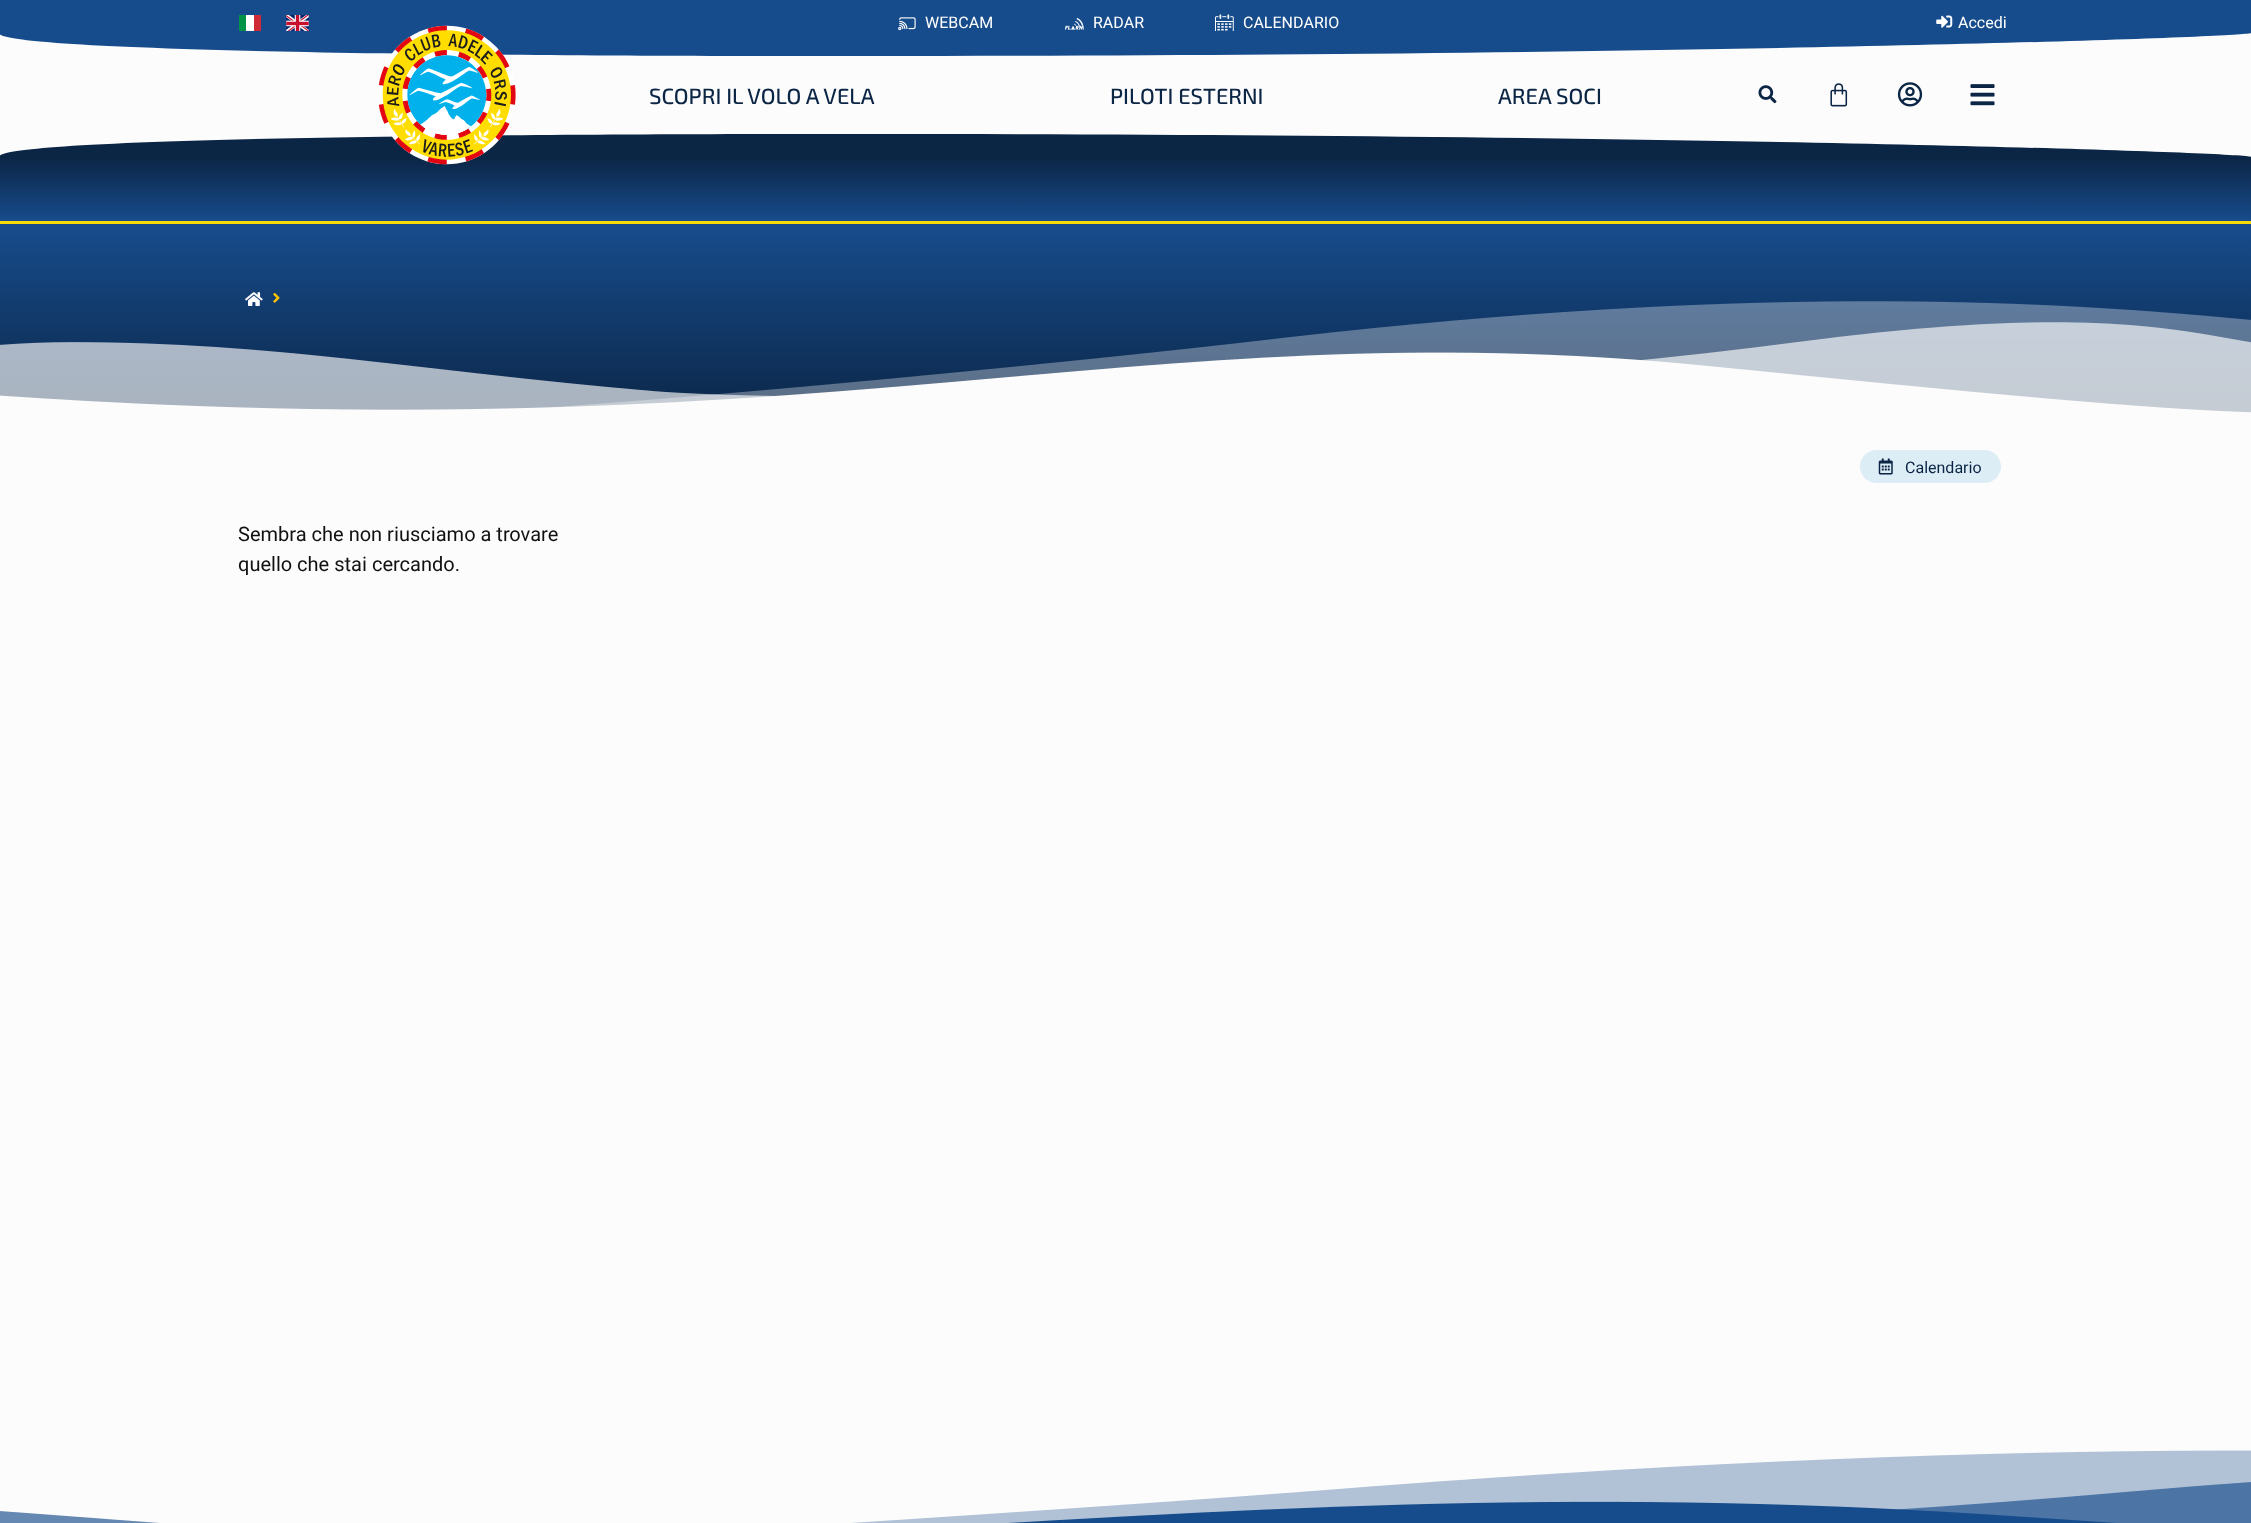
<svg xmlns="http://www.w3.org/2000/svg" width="2251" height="1523">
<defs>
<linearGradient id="g1" gradientUnits="userSpaceOnUse" x1="1126" y1="157" x2="1126" y2="221"><stop offset="0" stop-color="#0b2545"/><stop offset="1" stop-color="#174c8c"/></linearGradient>
<linearGradient id="g2" gradientUnits="userSpaceOnUse" x1="1126" y1="425" x2="1126" y2="224"><stop offset="0" stop-color="#0b2545"/><stop offset="1" stop-color="#174c8c"/></linearGradient>
</defs>
<rect width="100%" height="100%" fill="#fcfcfc"/>
<rect width="2251" height="31" fill="#174c8c"/>
<rect x="246" y="15" width="8" height="16" fill="#fff"/>
<rect x="239" y="15" width="7" height="17" fill="#009246"/>
<rect x="254" y="15" width="7" height="17" fill="#ce2b37"/>
<image x="286" y="15" width="23" height="16" href="media/1.png"/>
<image x="898" y="17" width="18" height="14" href="media/2.png"/>
<text x="925" y="28" style="font-family:Heebo;font-size:16px;fill:#fff">WEBCAM</text>
<image x="1065" y="18" width="19" height="12" href="media/3.png"/>
<text x="1093" y="28" style="font-family:Heebo;font-size:16px;fill:#fff">RADAR</text>
<image x="1215" y="14" width="19" height="17" href="media/4.png"/>
<text x="1243" y="28" style="font-family:Heebo;font-size:16px;fill:#fff">CALENDARIO</text>
<image x="1936" y="15" width="17" height="13" href="media/5.png"/>
<text x="1958" y="28" style="font-family:Heebo;font-size:16px;fill:#fff">Accedi</text>
<path d="M2251 31v2c0 4-541 23-1386 23c-843 0-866-18-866-23v-2z" fill="#174c8c"/>
<path d="M2251 159v-2c0-4-541-23-1386-23c-843 0-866 18-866 23v2z" fill="#0b2545"/>
<rect y="159" width="2251" height="62" fill="url(#g1)"/>
<image x="378" y="25" width="138" height="140" href="media/6.png"/>
<text x="649" y="104" style="font-family:'Exo 2';font-size:22px;font-weight:500;fill:#0b2545">SCOPRI IL VOLO A VELA</text>
<text x="1110" y="104" style="font-family:'Exo 2';font-size:22px;font-weight:500;fill:#0b2545">PILOTI ESTERNI</text>
<text x="1498" y="104" style="font-family:'Exo 2';font-size:22px;font-weight:500;fill:#0b2545">AREA SOCI</text>
<image x="1758" y="85" width="19" height="19" href="media/7.png"/>
<image x="1830" y="83" width="18" height="24" href="media/8.png"/>
<image x="1897" y="82" width="26" height="25" href="media/9.png"/>
<image x="1970" y="84" width="25" height="22" href="media/10.png"/>
<rect y="221" width="2251" height="3" fill="#fada04"/>
<rect y="224" width="2251" height="189" fill="url(#g2)"/>
<image x="0" y="301" width="2251" height="124" href="media/13.png"/>
<image x="245" y="292" width="18" height="14" href="media/11.png"/>
<image x="273" y="293" width="7" height="10" href="media/12.png"/>
<rect x="1860" y="450" width="141" height="33" rx="16.5" fill="#dcedf6"/>
<image x="1878" y="458" width="15" height="17" href="media/14.png"/>
<text x="1905" y="473" style="font-family:Heebo;font-size:16px;fill:#0b2545">Calendario</text>
<text x="238" y="541" style="font-family:Heebo;font-size:20px;fill:#111">Sembra che non riusciamo a trovare</text>
<text x="238" y="571" style="font-family:Heebo;font-size:20px;fill:#111">quello che stai cercando.</text>
<image x="0" y="1450" width="2251" height="73" href="media/15.png"/>
</svg>
